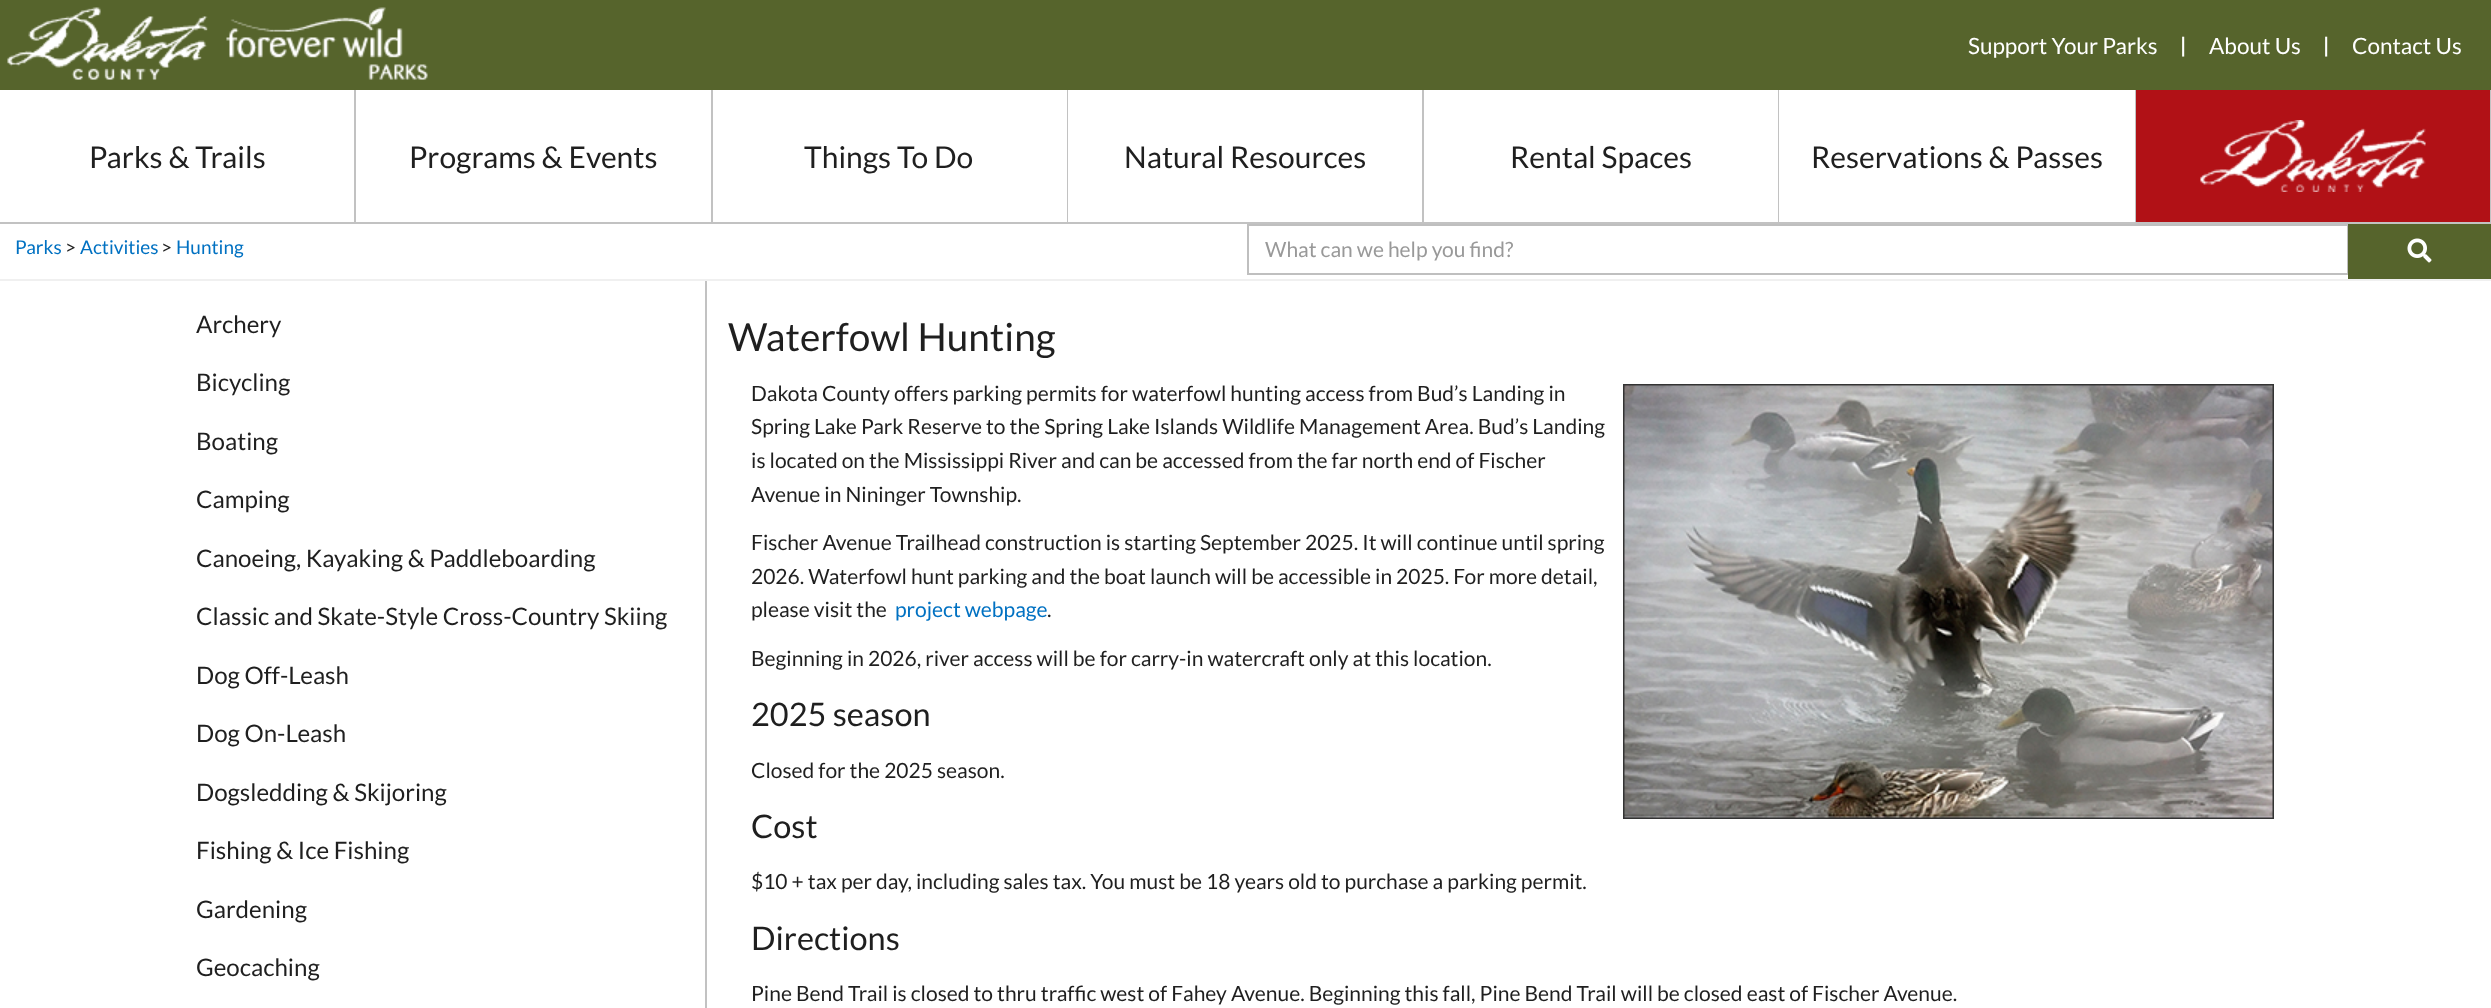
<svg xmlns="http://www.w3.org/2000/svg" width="2491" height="1008">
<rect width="100%" height="100%" fill="#fff"/>
<rect width="2491" height="90" fill="#56642c"/>
<image x="7" y="7" width="421" height="73" href="media/1.png"/>
<text x="1968" y="54" style="font-family:Lato;font-size:22.5px;fill:#fff">Support Your Parks</text>
<text x="2180" y="53" style="font-family:Lato;font-size:21px;font-weight:bold;fill:#fff">|</text>
<text x="2209" y="54" style="font-family:Lato;font-size:22.5px;fill:#fff">About Us</text>
<text x="2323" y="53" style="font-family:Lato;font-size:21px;font-weight:bold;fill:#fff">|</text>
<text x="2352" y="54" style="font-family:Lato;font-size:22.5px;fill:#fff">Contact Us</text>
<rect y="222" width="2491" height="2" fill="#c2c2c2"/>
<rect x="354" y="90" width="2" height="132" fill="#c2c2c2"/>
<text x="89" y="168" style="font-family:Lato;font-size:30px;fill:#1f1f1f">Parks &amp; Trails</text>
<rect x="711" y="90" width="2" height="132" fill="#c2c2c2"/>
<text x="409" y="168" style="font-family:Lato;font-size:30px;fill:#1f1f1f">Programs &amp; Events</text>
<rect x="1067" y="90" width="1" height="132" fill="#c2c2c2"/>
<text x="804" y="168" style="font-family:Lato;font-size:30px;fill:#1f1f1f">Things To Do</text>
<rect x="1422" y="90" width="2" height="132" fill="#c2c2c2"/>
<text x="1124" y="168" style="font-family:Lato;font-size:30px;fill:#1f1f1f">Natural Resources</text>
<rect x="1778" y="90" width="1" height="132" fill="#c2c2c2"/>
<text x="1510" y="168" style="font-family:Lato;font-size:30px;fill:#1f1f1f">Rental Spaces</text>
<rect x="2135" y="90" width="1" height="132" fill="#c2c2c2"/>
<text x="1811" y="168" style="font-family:Lato;font-size:30px;fill:#1f1f1f">Reservations &amp; Passes</text>
<rect x="2136" y="90" width="354" height="132" fill="#b11116"/>
<rect x="2490" y="90" width="1" height="132" fill="#c2c2c2"/>
<image x="2200" y="120" width="226" height="72" href="media/2.png"/>
<rect y="279" width="2491" height="2" fill="#f0f0f0"/>
<text x="15" y="254" style="font-family:Lato;font-size:19px;fill:#0071c2">Parks</text>
<text x="65" y="254" style="font-family:Lato;font-size:19px;fill:#1f1f1f">&gt;</text>
<text x="80" y="254" style="font-family:Lato;font-size:19px;fill:#0071c2">Activities</text>
<text x="161" y="254" style="font-family:Lato;font-size:19px;fill:#1f1f1f">&gt;</text>
<text x="176" y="254" style="font-family:Lato;font-size:19px;fill:#0071c2">Hunting</text>
<rect x="1248" y="225" width="1100" height="49" fill="none" stroke="#bfbfbf" stroke-width="2"/>
<text x="1265" y="257" style="font-family:Lato;font-size:21px;fill:#999">What can we help you find?</text>
<rect x="2348" y="224" width="143" height="55" fill="#56642c"/>
<image x="2407" y="238" width="25" height="25" href="media/3.png"/>
<rect x="705" y="281" width="2" height="727" fill="#c2c2c2"/>
<text x="196" y="333" style="font-family:Lato;font-size:24.1px;fill:#1f1f1f">Archery</text>
<text x="196" y="391" style="font-family:Lato;font-size:24.1px;fill:#1f1f1f">Bicycling</text>
<text x="196" y="450" style="font-family:Lato;font-size:24.1px;fill:#1f1f1f">Boating</text>
<text x="196" y="508" style="font-family:Lato;font-size:24.1px;fill:#1f1f1f">Camping</text>
<text x="196" y="567" style="font-family:Lato;font-size:24.1px;fill:#1f1f1f">Canoeing, Kayaking &amp; Paddleboarding</text>
<text x="196" y="625" style="font-family:Lato;font-size:24.1px;fill:#1f1f1f">Classic and Skate-Style Cross-Country Skiing</text>
<text x="196" y="684" style="font-family:Lato;font-size:24.1px;fill:#1f1f1f">Dog Off-Leash</text>
<text x="196" y="742" style="font-family:Lato;font-size:24.1px;fill:#1f1f1f">Dog On-Leash</text>
<text x="196" y="801" style="font-family:Lato;font-size:24.1px;fill:#1f1f1f">Dogsledding &amp; Skijoring</text>
<text x="196" y="859" style="font-family:Lato;font-size:24.1px;fill:#1f1f1f">Fishing &amp; Ice Fishing</text>
<text x="196" y="918" style="font-family:Lato;font-size:24.1px;fill:#1f1f1f">Gardening</text>
<text x="196" y="976" style="font-family:Lato;font-size:24.1px;fill:#1f1f1f">Geocaching</text>
<text x="728" y="351" style="font-family:Lato;font-size:38.75px;fill:#1f1f1f">Waterfowl Hunting</text>
<text x="751" y="401" style="font-family:Lato;font-size:21px;fill:#1f1f1f">Dakota County offers parking permits for waterfowl hunting access from Bud’s Landing in</text>
<rect x="1624" y="385" width="649" height="433" fill="none" stroke="#333" stroke-width="2"/>
<image x="1624" y="385" width="649" height="433" href="media/4.png"/>
<text x="751" y="434" style="font-family:Lato;font-size:21px;fill:#1f1f1f">Spring Lake Park Reserve to the Spring Lake Islands Wildlife Management Area. Bud’s Landing</text>
<text x="751" y="468" style="font-family:Lato;font-size:21px;fill:#1f1f1f">is located on the Mississippi River and can be accessed from the far north end of Fischer</text>
<text x="751" y="502" style="font-family:Lato;font-size:21px;fill:#1f1f1f">Avenue in Nininger Township.</text>
<text x="751" y="550" style="font-family:Lato;font-size:21px;fill:#1f1f1f">Fischer Avenue Trailhead construction is starting September 2025. It will continue until spring</text>
<text x="751" y="584" style="font-family:Lato;font-size:21px;fill:#1f1f1f">2026. Waterfowl hunt parking and the boat launch will be accessible in 2025. For more detail,</text>
<text x="751" y="617" style="font-family:Lato;font-size:21px;fill:#1f1f1f">please visit the</text>
<text x="895" y="617" style="font-family:Lato;font-size:21px;fill:#0071c2">project webpage</text>
<text x="1047" y="617" style="font-family:Lato;font-size:21px;fill:#1f1f1f">.</text>
<text x="751" y="666" style="font-family:Lato;font-size:21px;fill:#1f1f1f">Beginning in 2026, river access will be for carry-in watercraft only at this location.</text>
<text x="751" y="726" style="font-family:Lato;font-size:32.5px;fill:#1f1f1f">2025 season</text>
<text x="751" y="778" style="font-family:Lato;font-size:21px;fill:#1f1f1f">Closed for the 2025 season.</text>
<text x="751" y="838" style="font-family:Lato;font-size:32.5px;fill:#1f1f1f">Cost</text>
<text x="751" y="889" style="font-family:Lato;font-size:21px;fill:#1f1f1f">$10 + tax per day, including sales tax. You must be 18 years old to purchase a parking permit.</text>
<text x="751" y="950" style="font-family:Lato;font-size:32.5px;fill:#1f1f1f">Directions</text>
<text x="751" y="1001" style="font-family:Lato;font-size:21px;fill:#1f1f1f">Pine Bend Trail is closed to thru traffic west of Fahey Avenue. Beginning this fall, Pine Bend Trail will be closed east of Fischer Avenue.</text>
</svg>
